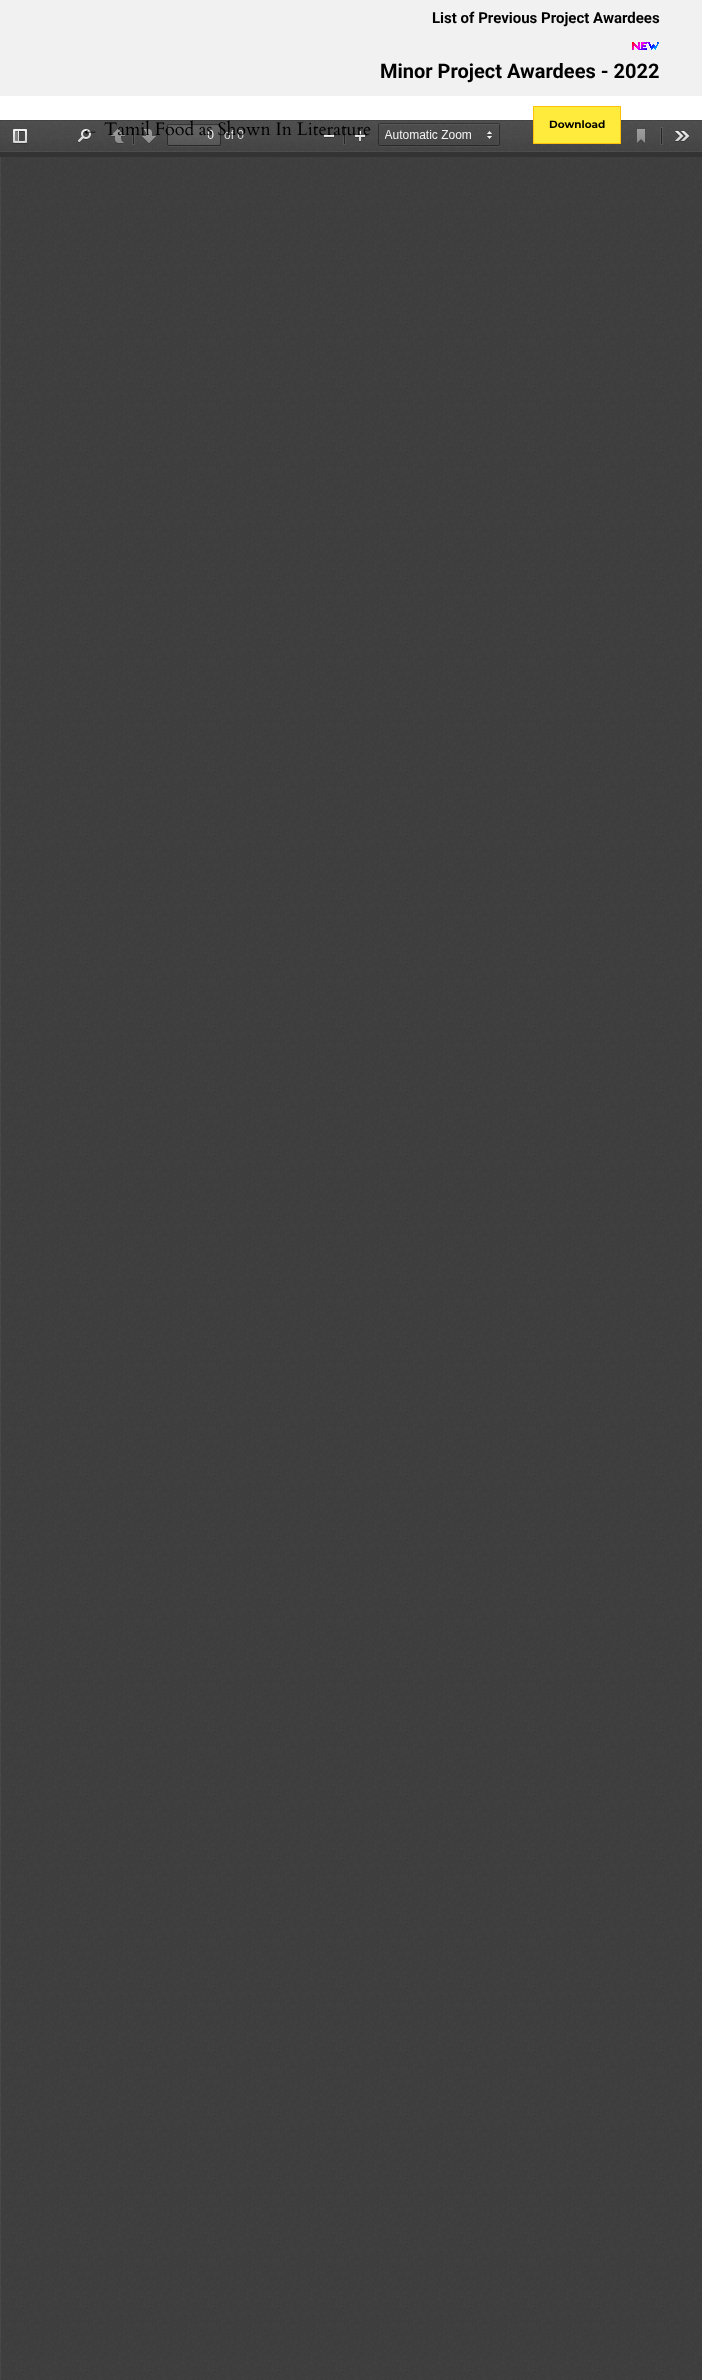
<svg xmlns="http://www.w3.org/2000/svg" width="702" height="2380">
<rect width="100%" height="100%" fill="#fff"/>
<rect width="702" height="96" fill="#f1f1f1"/>
<text x="432" y="23" style="font-family:Roboto;font-size:15px;font-weight:bold;fill:#000">List of Previous Project Awardees</text>
<image x="632" y="42" width="27" height="8" href="media/1.png"/>
<text x="380" y="78" style="font-family:Roboto;font-size:20px;font-weight:bold;fill:#000">Minor Project Awardees - 2022</text>
<image x="0" y="120" width="702" height="2260" href="media/2.png"/>
<text x="81" y="135" style="font-family:Liberation Serif;font-size:18px;fill:#000">←</text>
<text x="104" y="135" style="font-family:Cardo;font-size:18px;fill:#000">Tamil Food as Shown In Literature</text>
<rect x="533.5" y="106.5" width="87" height="37" fill="#ffeb3b" stroke="#ffc107"/>
<text x="549" y="128" style="font-family:Montserrat;font-size:10.5px;font-weight:bold;fill:#000">Download</text>
</svg>
